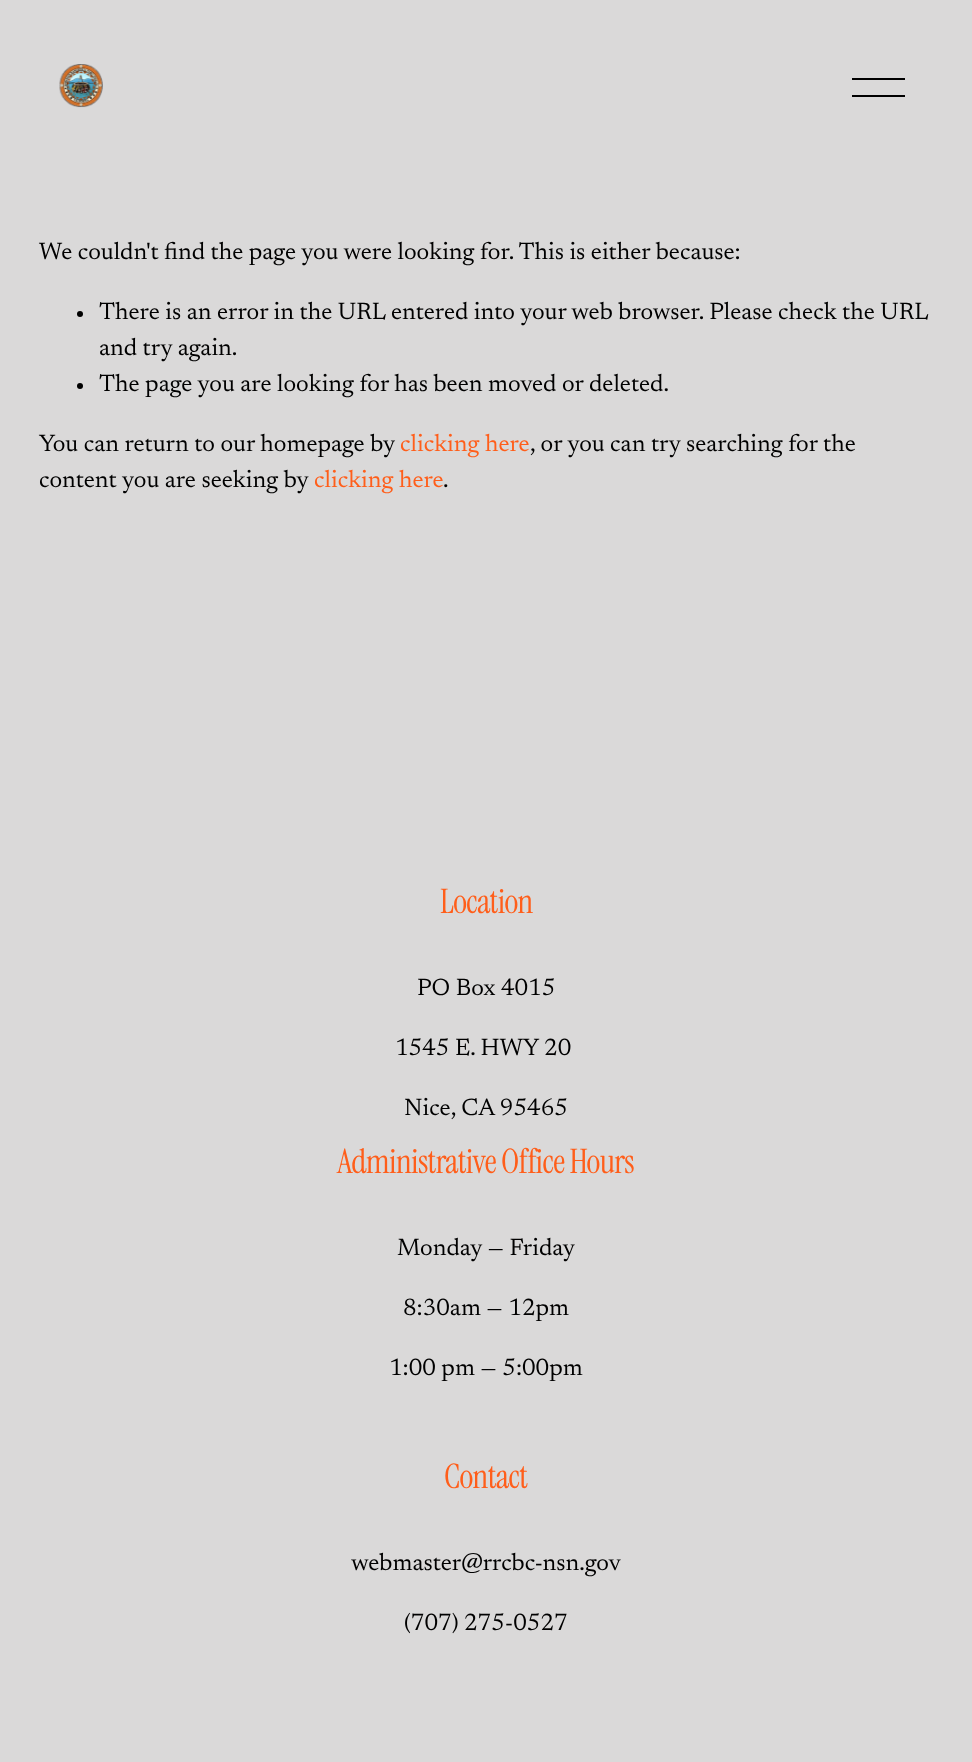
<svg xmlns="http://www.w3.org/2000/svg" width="972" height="1762">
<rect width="100%" height="100%" fill="#dad9d9"/>
<image x="59" y="64" width="44" height="44" href="media/1.png"/>
<rect x="852" y="78" width="53" height="2" fill="#000"/>
<rect x="852" y="95" width="53" height="2" fill="#000"/>
<text x="39" y="259" style="font-family:Newsreader;font-size:24px;fill:#000">We couldn't find the page you were looking for. This is either because:</text>
<circle cx="80" cy="314" r="3" fill="#000"/>
<text x="99" y="319" style="font-family:Newsreader;font-size:24px;fill:#000">There is an error in the URL entered into your web browser. Please check the URL</text>
<text x="99" y="355" style="font-family:Newsreader;font-size:24px;fill:#000">and try again.</text>
<circle cx="80" cy="386" r="3" fill="#000"/>
<text x="99" y="391" style="font-family:Newsreader;font-size:24px;fill:#000">The page you are looking for has been moved or deleted.</text>
<text x="39" y="451" style="font-family:Newsreader;font-size:24px;fill:#000">You can return to our homepage by</text>
<text x="400" y="451" style="font-family:Newsreader;font-size:24px;fill:#ff5e1a">clicking here</text>
<text x="530" y="451" style="font-family:Newsreader;font-size:24px;fill:#000">, or you can try searching for the</text>
<text x="39" y="487" style="font-family:Newsreader;font-size:24px;fill:#000">content you are seeking by</text>
<text x="314" y="487" style="font-family:Newsreader;font-size:24px;fill:#ff5e1a">clicking here</text>
<text x="443" y="487" style="font-family:Newsreader;font-size:24px;fill:#000">.</text>
<text x="440" y="913" style="font-family:Instrument Serif;font-size:33.75px;letter-spacing:-0.7px;fill:#ff5e1a">Location</text>
<text x="417" y="995" style="font-family:Newsreader;font-size:24px;fill:#000">PO Box 4015</text>
<text x="395" y="1055" style="font-family:Newsreader;font-size:24px;fill:#000">1545 E. HWY 20</text>
<text x="404" y="1115" style="font-family:Newsreader;font-size:24px;fill:#000">Nice, CA 95465</text>
<text x="337" y="1173" style="font-family:Instrument Serif;font-size:33.75px;letter-spacing:-0.7px;fill:#ff5e1a">Administrative Office Hours</text>
<text x="397" y="1255" style="font-family:Newsreader;font-size:24px;fill:#000">Monday — Friday</text>
<text x="403" y="1315" style="font-family:Newsreader;font-size:24px;fill:#000">8:30am — 12pm</text>
<text x="389" y="1375" style="font-family:Newsreader;font-size:24px;fill:#000">1:00 pm — 5:00pm</text>
<text x="444" y="1488" style="font-family:Instrument Serif;font-size:33.75px;letter-spacing:-0.7px;fill:#ff5e1a">Contact</text>
<text x="351" y="1570" style="font-family:Newsreader;font-size:24px;fill:#000">webmaster@rrcbc-nsn.gov</text>
<text x="404" y="1630" style="font-family:Newsreader;font-size:24px;fill:#000">(707) 275-0527</text>
</svg>
